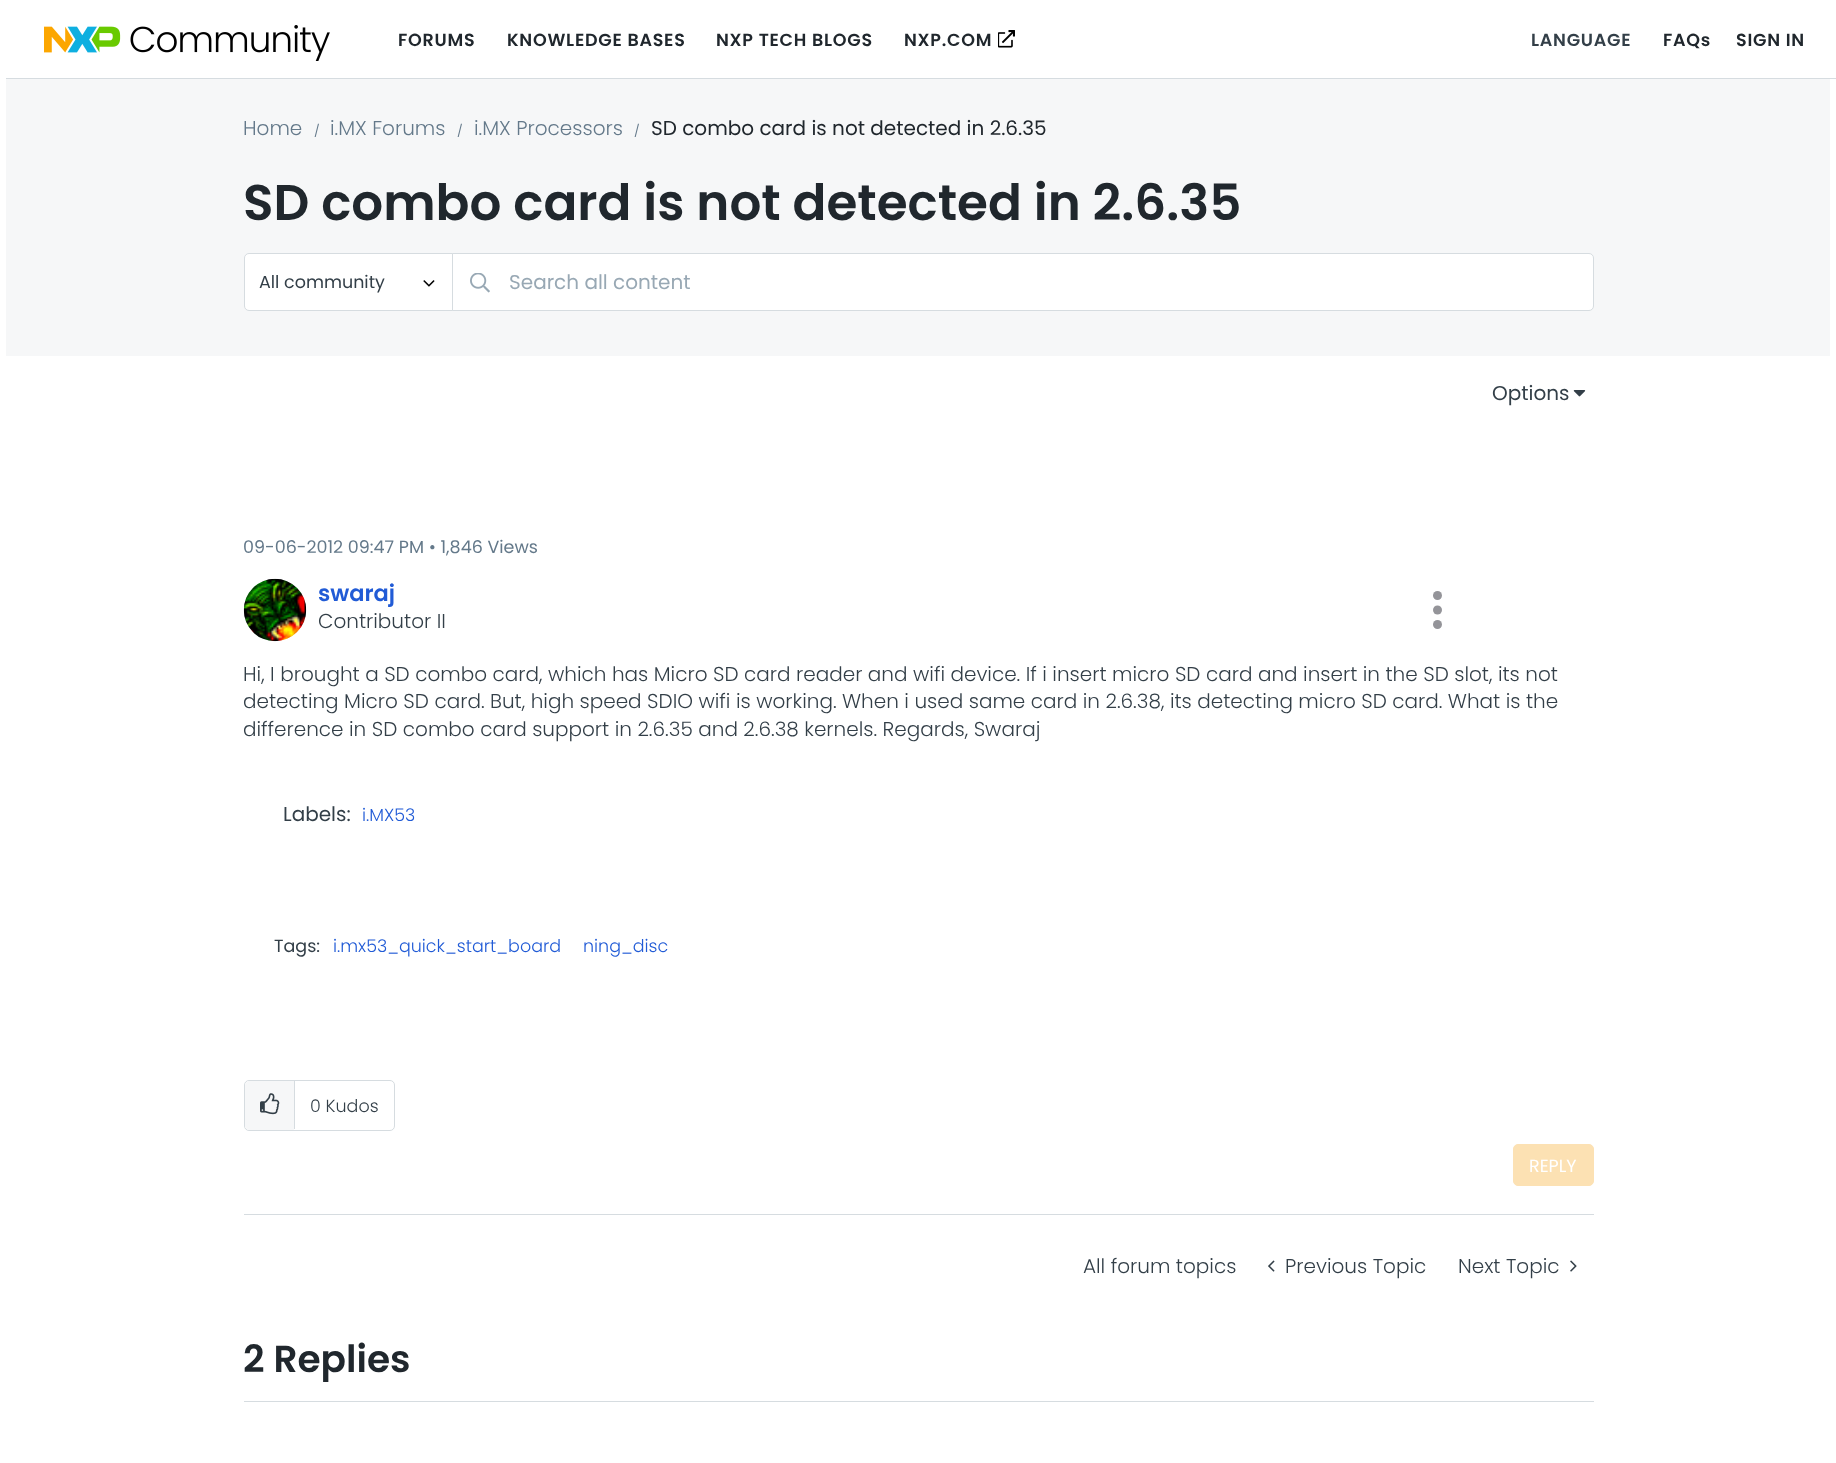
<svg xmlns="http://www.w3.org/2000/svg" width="1836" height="1463">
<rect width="100%" height="100%" fill="#fff"/>
<rect x="6" y="78" width="1830" height="1" fill="#d6dce0"/>
<image x="44" y="25" width="286" height="36" href="media/1.png"/>
<text x="398" y="46" style="font-family:Poppins;font-size:17.5px;font-weight:600;letter-spacing:0.75px;fill:#20272d">FORUMS</text>
<text x="507" y="46" style="font-family:Poppins;font-size:17.5px;font-weight:600;letter-spacing:0.75px;fill:#20272d">KNOWLEDGE BASES</text>
<text x="716" y="46" style="font-family:Poppins;font-size:17.5px;font-weight:600;letter-spacing:0.75px;fill:#20272d">NXP TECH BLOGS</text>
<text x="904" y="46" style="font-family:Poppins;font-size:17.5px;font-weight:600;letter-spacing:0.75px;fill:#20272d">NXP.COM</text>
<image x="998" y="30" width="17" height="18" href="media/2.png"/>
<text x="1531" y="46" style="font-family:Poppins;font-size:17.5px;font-weight:600;letter-spacing:0.75px;fill:#333f48">LANGUAGE</text>
<text x="1663" y="46" style="font-family:Poppins;font-size:17.5px;font-weight:600;letter-spacing:0.75px;fill:#20272d">FAQs</text>
<text x="1736" y="46" style="font-family:Poppins;font-size:17.5px;font-weight:600;letter-spacing:0.75px;fill:#20272d">SIGN IN</text>
<rect x="6" y="79" width="1824" height="277" fill="#f6f7f8"/>
<text x="243" y="135" style="font-family:Poppins;font-size:20px;font-weight:300;fill:#64798a">Home</text>
<text x="314" y="135" style="font-family:Poppins;font-size:12px;fill:#64798a">/</text>
<text x="330" y="135" style="font-family:Poppins;font-size:20px;font-weight:300;fill:#64798a">i.MX Forums</text>
<text x="457" y="135" style="font-family:Poppins;font-size:12px;fill:#64798a">/</text>
<text x="474" y="135" style="font-family:Poppins;font-size:20px;font-weight:300;fill:#64798a">i.MX Processors</text>
<text x="634" y="135" style="font-family:Poppins;font-size:12px;fill:#64798a">/</text>
<text x="651" y="135" style="font-family:Poppins;font-size:20px;fill:#20272d">SD combo card is not detected in 2.6.35</text>
<text x="243" y="220" style="font-family:Poppins;font-size:50px;font-weight:600;fill:#20272d">SD combo card is not detected in 2.6.35</text>
<path d="M451.5 253.5h1137.5c2.5 0 4.5 2 4.5 4.5v48c0 2.5-2 4.5-4.5 4.5h-1137.5z" fill="#fff" stroke="#d6dce0"/>
<path d="M249 253.5h203.5v57h-203.5c-2.5 0-4.5-2-4.5-4.5v-48c0-2.5 2-4.5 4.5-4.5z" fill="#fff" stroke="#d6dce0"/>
<text x="259" y="288" style="font-family:Poppins;font-size:17.5px;fill:#333f48">All community</text>
<image x="423" y="280" width="12" height="7" href="media/3.png"/>
<image x="470" y="273" width="20" height="20" href="media/4.png"/>
<text x="509" y="289" style="font-family:Poppins;font-size:20px;fill:#98a8b4">Search all content</text>
<text x="1492" y="400" style="font-family:Poppins;font-size:20px;fill:#333f48">Options</text>
<image x="1573" y="390" width="13" height="7" href="media/5.png"/>
<rect x="244" y="1214" width="1350" height="1" fill="#d6dce0"/>
<text x="243" y="553" style="font-family:Poppins;font-size:17.5px;fill:#64798a">09-06-2012 09:47 PM • 1,846 Views</text>
<rect x="244" y="579" width="62" height="62" rx="31" fill="#d6dce0" filter="blur(0.5px)"/>
<image x="243" y="578" width="64" height="64" href="media/6.png"/>
<text x="318" y="601" style="font-family:Poppins;font-size:22.5px;font-weight:600;fill:#215bd6">swaraj</text>
<text x="318" y="628" style="font-family:Poppins;font-size:20px;font-weight:300;fill:#333f48">Contributor II</text>
<circle cx="1437.5" cy="595.5" r="4.5" fill="#949499"/>
<circle cx="1437.5" cy="610" r="4.5" fill="#949499"/>
<circle cx="1437.5" cy="624.5" r="4.5" fill="#949499"/>
<text x="243" y="681" style="font-family:Poppins;font-size:20px;font-weight:300;fill:#333f48">Hi, I brought a SD combo card, which has Micro SD card reader and wifi device. If i insert micro SD card and insert in the SD slot, its not</text>
<text x="243" y="708" style="font-family:Poppins;font-size:20px;font-weight:300;fill:#333f48">detecting Micro SD card. But, high speed SDIO wifi is working. When i used same card in 2.6.38, its detecting micro SD card. What is the</text>
<text x="243" y="736" style="font-family:Poppins;font-size:20px;font-weight:300;fill:#333f48">difference in SD combo card support in 2.6.35 and 2.6.38 kernels. Regards, Swaraj</text>
<text x="283" y="821" style="font-family:Poppins;font-size:20px;fill:#333f48">Labels:</text>
<text x="362" y="821" style="font-family:Poppins;font-size:17.5px;font-weight:300;fill:#215bd6">i.MX53</text>
<text x="274" y="952" style="font-family:Poppins;font-size:17.5px;fill:#333f48">Tags:</text>
<text x="333" y="952" style="font-family:Poppins;font-size:17.5px;font-weight:300;fill:#215bd6">i.mx53_quick_start_board</text>
<text x="583" y="952" style="font-family:Poppins;font-size:17.5px;font-weight:300;fill:#215bd6">ning_disc</text>
<rect x="244.5" y="1080.5" width="150" height="50" rx="4.5" fill="none" stroke="#d6dce0"/>
<path d="M250 1081h44v49h-44c-3 0-5-2-5-5v-39c0-3 2-5 5-5z" fill="#f6f7f8"/>
<image x="260" y="1093" width="20" height="22" href="media/7.png"/>
<rect x="294" y="1081" width="1" height="48" fill="#d6dce0"/>
<text x="310" y="1112" style="font-family:Poppins;font-size:17.5px;font-weight:300;fill:#333f48">0 Kudos</text>
<rect x="1513.5" y="1144.5" width="80" height="41" rx="4.5" fill="#fce1b3" stroke="#fce1b3"/>
<text x="1529" y="1172" style="font-family:Poppins;font-size:17.5px;fill:#fff">REPLY</text>
<text x="1083" y="1273" style="font-family:Poppins;font-size:20px;font-weight:300;fill:#333f48">All forum topics</text>
<image x="1268" y="1260" width="7" height="12" href="media/8.png"/>
<text x="1285" y="1273" style="font-family:Poppins;font-size:20px;font-weight:300;fill:#333f48">Previous Topic</text>
<text x="1458" y="1273" style="font-family:Poppins;font-size:20px;font-weight:300;fill:#333f48">Next Topic</text>
<image x="1570" y="1260" width="7" height="12" href="media/9.png"/>
<rect x="244" y="1401" width="1350" height="1" fill="#d6dce0"/>
<text x="243" y="1372" style="font-family:Poppins;font-size:37.5px;font-weight:600;fill:#20272d">2 Replies</text>
</svg>
